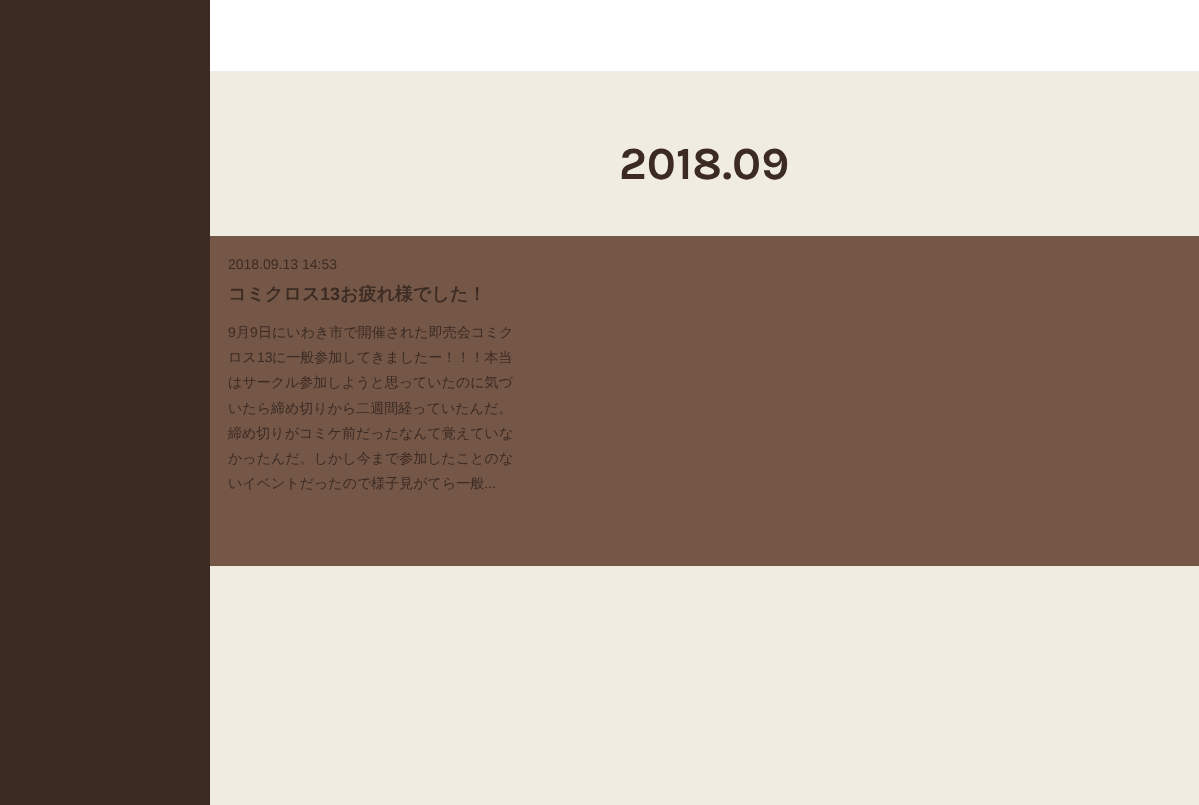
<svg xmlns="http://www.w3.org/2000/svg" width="1199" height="805">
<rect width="100%" height="100%" fill="#f1ece1"/>
<rect width="210" height="805" fill="#3b2b23"/>
<rect x="210" width="989" height="71" fill="#fff"/>
<rect x="210" y="71" width="989" height="1" fill="#eee"/>
<text x="619" y="179" style="font-family:Karla;font-size:46px;font-weight:bold;fill:#3b2b23">2018.09</text>
<rect x="210" y="236" width="989" height="330" fill="#755748"/>
<text x="228" y="269" style="font-family:Liberation Sans;font-size:14px;fill:#3b2b23">2018.09.13 14:53</text>
<text x="228" y="300" style="font-family:WenQuanYi Zen Hei;font-size:18px;font-weight:bold;fill:#3b2b23">コミクロス</text>
<text x="320" y="300" style="font-family:Liberation Sans;font-size:18px;font-weight:bold;fill:#3b2b23">13</text>
<text x="340" y="300" style="font-family:WenQuanYi Zen Hei;font-size:18px;font-weight:bold;fill:#3b2b23">お疲れ様でした！</text>
<text x="228" y="337" style="font-family:Liberation Sans;font-size:14px;fill:#3b2b23">9</text>
<text x="236" y="337" style="font-family:WenQuanYi Zen Hei;font-size:14px;font-weight:500;fill:#3b2b23">月</text>
<text x="250" y="337" style="font-family:Liberation Sans;font-size:14px;fill:#3b2b23">9</text>
<text x="258" y="337" style="font-family:WenQuanYi Zen Hei;font-size:14px;font-weight:500;fill:#3b2b23">日にいわき市で開催された即売会コミク</text>
<text x="228" y="362" style="font-family:WenQuanYi Zen Hei;font-size:14px;font-weight:500;fill:#3b2b23">ロス</text>
<text x="257" y="362" style="font-family:Liberation Sans;font-size:14px;fill:#3b2b23">13</text>
<text x="272" y="362" style="font-family:WenQuanYi Zen Hei;font-size:14px;font-weight:500;fill:#3b2b23">に一般参加してきましたー！！！本当</text>
<text x="228" y="387" style="font-family:WenQuanYi Zen Hei;font-size:14px;font-weight:500;fill:#3b2b23">はサークル参加しようと思っていたのに気づ</text>
<text x="228" y="413" style="font-family:WenQuanYi Zen Hei;font-size:14px;font-weight:500;fill:#3b2b23">いたら締め切りから二週間経っていたんだ。</text>
<text x="228" y="438" style="font-family:WenQuanYi Zen Hei;font-size:14px;font-weight:500;fill:#3b2b23">締め切りがコミケ前だったなんて覚えていな</text>
<text x="228" y="463" style="font-family:WenQuanYi Zen Hei;font-size:14px;font-weight:500;fill:#3b2b23">かったんだ。しかし今まで参加したことのな</text>
<text x="228" y="488" style="font-family:WenQuanYi Zen Hei;font-size:14px;font-weight:500;fill:#3b2b23">いイベントだったので様子見がてら一般</text>
<text x="484" y="488" style="font-family:Liberation Sans;font-size:14px;fill:#3b2b23">...</text>
</svg>
